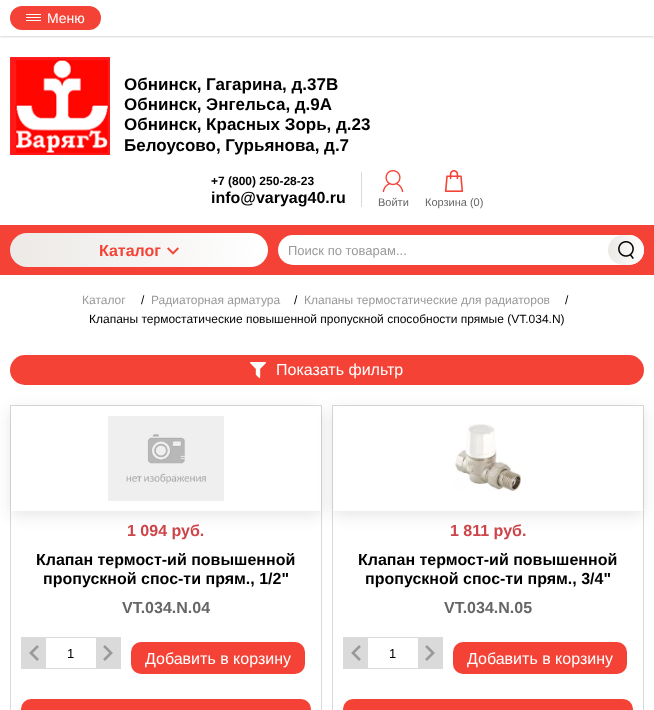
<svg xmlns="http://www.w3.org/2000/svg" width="654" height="710">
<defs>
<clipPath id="clip1"><rect x="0" y="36" width="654" height="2"/></clipPath>
<linearGradient id="g1" gradientUnits="userSpaceOnUse" x1="10" y1="250" x2="268" y2="250"><stop offset="0" stop-color="#ece9e6"/><stop offset="1" stop-color="#fff"/></linearGradient>
<linearGradient id="g2" gradientUnits="userSpaceOnUse" x1="608" y1="250" x2="644" y2="250"><stop offset="0" stop-color="#ece9e6"/><stop offset="1" stop-color="#fff"/></linearGradient>
<clipPath id="clip2"><path d="M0 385h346v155h-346zm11 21h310v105h-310z" clip-rule="evenodd"/></clipPath>
<clipPath id="clip3"><path d="M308 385h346v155h-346zm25 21h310v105h-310z" clip-rule="evenodd"/></clipPath>
</defs>
<rect width="100%" height="100%" fill="#fff"/>
<g clip-path="url(#clip1)">
<rect y="1" width="654" height="36" fill="#00000029" filter="blur(1px)"/>
</g>
<rect x="10" y="6" width="91" height="24" rx="12" fill="#f44336"/>
<rect x="26" y="14" width="15" height="1" fill="#fff"/>
<rect x="26" y="17" width="15" height="1" fill="#fff"/>
<rect x="26" y="20" width="15" height="1" fill="#fff"/>
<text x="47" y="23" style="font-family:Liberation Sans;font-size:14px;fill:#fff">Меню</text>
<image x="10" y="57" width="100" height="98" href="media/1.png"/>
<text x="124" y="90" style="font-family:Liberation Sans;font-size:17px;font-weight:bold;fill:#000">Обнинск, Гагарина, д.37В</text>
<text x="124" y="110" style="font-family:Liberation Sans;font-size:17px;font-weight:bold;fill:#000">Обнинск, Энгельса, д.9А</text>
<text x="124" y="130" style="font-family:Liberation Sans;font-size:17px;font-weight:bold;fill:#000">Обнинск, Красных Зорь, д.23</text>
<text x="124" y="151" style="font-family:Liberation Sans;font-size:17px;font-weight:bold;fill:#000">Белоусово, Гурьянова, д.7</text>
<text x="211" y="185" style="font-family:Liberation Sans;font-size:12px;font-weight:bold;fill:#000">+7 (800) 250-28-23</text>
<text x="211" y="203" style="font-family:Liberation Sans;font-size:16px;font-weight:bold;fill:#000">info@varyag40.ru</text>
<rect x="361" y="172" width="1" height="35" fill="#dadada"/>
<image x="382" y="170" width="22" height="22" href="media/2.png"/>
<text x="378" y="206" style="font-family:Liberation Sans;font-size:11px;fill:#666">Войти</text>
<image x="444" y="170" width="20" height="22" href="media/3.png"/>
<text x="425" y="206" style="font-family:Liberation Sans;font-size:11px;fill:#666">Корзина (0)</text>
<rect y="225" width="654" height="50" fill="#f44336"/>
<rect x="10" y="233" width="258" height="34" rx="17" fill="url(#g1)"/>
<text x="99" y="256" style="font-family:Liberation Sans;font-size:16px;font-weight:bold;fill:#f44336">Каталог</text>
<image x="167" y="247" width="12" height="8" href="media/4.png"/>
<rect x="278" y="235" width="366" height="30" rx="15" fill="#fff"/>
<text x="288" y="255" style="font-family:Liberation Sans;font-size:13px;fill:#999">Поиск по товарам...</text>
<rect x="608" y="235" width="36" height="30" rx="15" fill="url(#g2)"/>
<image x="618" y="241" width="16" height="18" href="media/5.png"/>
<text x="82" y="304" style="font-family:Liberation Sans;font-size:12px;fill:#999">Каталог</text>
<text x="141" y="304" style="font-family:Liberation Sans;font-size:12px;fill:#000">/</text>
<text x="151" y="304" style="font-family:Liberation Sans;font-size:12px;fill:#999">Радиаторная арматура</text>
<text x="294" y="304" style="font-family:Liberation Sans;font-size:12px;fill:#000">/</text>
<text x="304" y="304" style="font-family:Liberation Sans;font-size:12px;fill:#999">Клапаны термостатические для радиаторов</text>
<text x="565" y="304" style="font-family:Liberation Sans;font-size:12px;fill:#000">/</text>
<text x="89" y="323" style="font-family:Liberation Sans;font-size:12px;fill:#000">Клапаны термостатические повышенной пропускной способности прямые (VT.034.N)</text>
<rect x="10" y="355" width="634" height="30" rx="15" fill="#f44336"/>
<image x="250" y="362" width="16" height="16" href="media/6.png"/>
<text x="276" y="375" style="font-family:Liberation Sans;font-size:16px;fill:#fff">Показать фильтр</text>
<rect x="10.5" y="405.5" width="311" height="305" fill="none" stroke="#dadada"/>
<g clip-path="url(#clip2)">
<rect x="11" y="410" width="310" height="105" fill="#0000001a" filter="blur(8px)"/>
</g>
<image x="108" y="416" width="116" height="85" href="media/7.png"/>
<text x="127" y="536" style="font-family:Liberation Sans;font-size:16px;font-weight:bold;fill:#cd4449">1 094 руб.</text>
<text x="36" y="565" style="font-family:Liberation Sans;font-size:16px;font-weight:bold;fill:#000">Клапан термост-ий повышенной</text>
<text x="43" y="584" style="font-family:Liberation Sans;font-size:16px;font-weight:bold;fill:#000">пропускной спос-ти прям., 1/2"</text>
<text x="122" y="613" style="font-family:Liberation Sans;font-size:16px;font-weight:bold;fill:#666">VT.034.N.04</text>
<rect x="21.5" y="637.5" width="99" height="31" fill="none" stroke="#dadada"/>
<rect x="22" y="638" width="24" height="30" fill="#dadada"/>
<image x="29" y="645" width="10" height="16" href="media/8.png"/>
<text x="67" y="658" style="font-family:Liberation Sans;font-size:13px;fill:#000">1</text>
<rect x="96" y="638" width="24" height="30" fill="#dadada"/>
<image x="103" y="645" width="10" height="16" href="media/9.png"/>
<rect x="131" y="642" width="174" height="32" rx="10" fill="#f44336"/>
<text x="145" y="664" style="font-family:Liberation Sans;font-size:16px;fill:#fff">Добавить в корзину</text>
<rect x="21" y="699" width="290" height="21" rx="10" fill="#f44336"/>
<rect x="332.5" y="405.5" width="311" height="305" fill="none" stroke="#dadada"/>
<g clip-path="url(#clip3)">
<rect x="333" y="410" width="310" height="105" fill="#0000001a" filter="blur(8px)"/>
</g>
<image x="454" y="424" width="67" height="67" href="media/10.png"/>
<text x="450" y="536" style="font-family:Liberation Sans;font-size:16px;font-weight:bold;fill:#cd4449">1 811 руб.</text>
<text x="358" y="565" style="font-family:Liberation Sans;font-size:16px;font-weight:bold;fill:#000">Клапан термост-ий повышенной</text>
<text x="365" y="584" style="font-family:Liberation Sans;font-size:16px;font-weight:bold;fill:#000">пропускной спос-ти прям., 3/4"</text>
<text x="444" y="613" style="font-family:Liberation Sans;font-size:16px;font-weight:bold;fill:#666">VT.034.N.05</text>
<rect x="343.5" y="637.5" width="99" height="31" fill="none" stroke="#dadada"/>
<rect x="344" y="638" width="24" height="30" fill="#dadada"/>
<image x="351" y="645" width="10" height="16" href="media/8.png"/>
<text x="389" y="658" style="font-family:Liberation Sans;font-size:13px;fill:#000">1</text>
<rect x="418" y="638" width="24" height="30" fill="#dadada"/>
<image x="425" y="645" width="10" height="16" href="media/9.png"/>
<rect x="453" y="642" width="174" height="32" rx="10" fill="#f44336"/>
<text x="467" y="664" style="font-family:Liberation Sans;font-size:16px;fill:#fff">Добавить в корзину</text>
<rect x="343" y="699" width="290" height="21" rx="10" fill="#f44336"/>
</svg>
